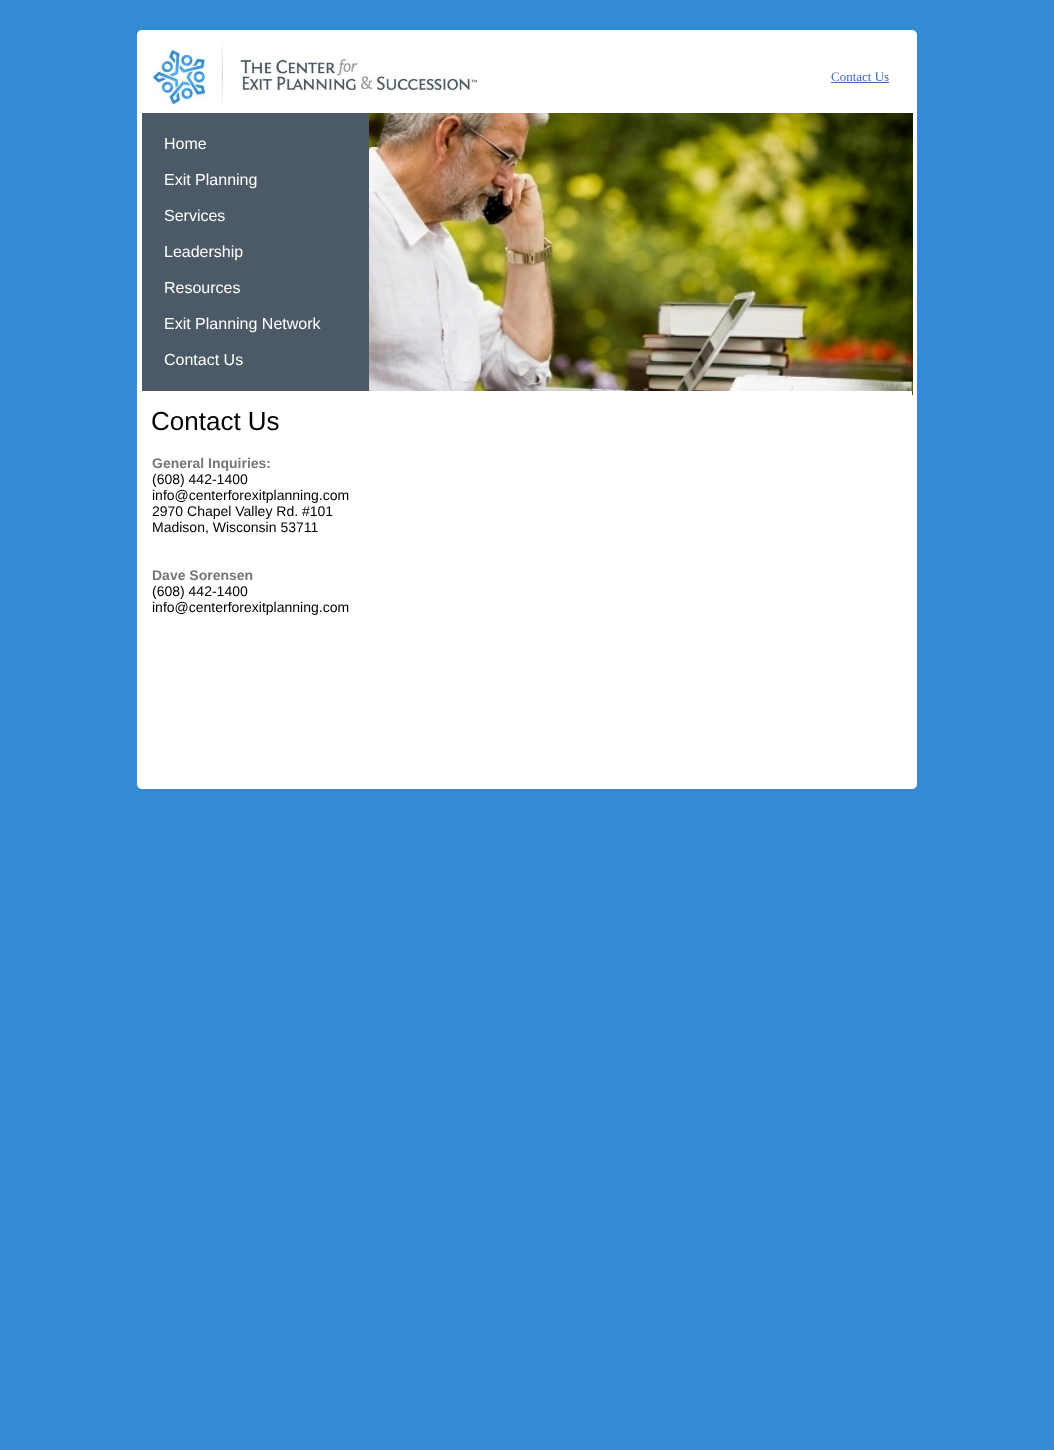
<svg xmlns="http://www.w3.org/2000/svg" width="1054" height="1450">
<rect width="100%" height="100%" fill="#338bd4"/>
<image x="137" y="30" width="5" height="5" href="media/1.png"/>
<rect x="137" y="35" width="780" height="749" fill="#fff"/>
<rect x="142" y="30" width="770" height="759" fill="#fff"/>
<image x="912" y="30" width="5" height="5" href="media/2.png"/>
<image x="137" y="784" width="5" height="5" href="media/3.png"/>
<image x="912" y="784" width="5" height="5" href="media/4.png"/>
<image x="151" y="43" width="329" height="64" href="media/5.png"/>
<text x="831" y="81" style="font-family:Liberation Serif;font-size:13px;fill:#406ab0">Contact Us</text>
<rect x="831" y="82" width="58" height="1" fill="#406ab0"/>
<rect x="142" y="113" width="227" height="278" fill="#4c5966"/>
<image x="369" y="113" width="544" height="282" href="media/6.png"/>
<text x="164" y="149" style="font-family:Liberation Sans;font-size:16px;fill:#fff">Home</text>
<text x="164" y="185" style="font-family:Liberation Sans;font-size:16px;fill:#fff">Exit Planning</text>
<text x="164" y="221" style="font-family:Liberation Sans;font-size:16px;fill:#fff">Services</text>
<text x="164" y="257" style="font-family:Liberation Sans;font-size:16px;fill:#fff">Leadership</text>
<text x="164" y="293" style="font-family:Liberation Sans;font-size:16px;fill:#fff">Resources</text>
<text x="164" y="329" style="font-family:Liberation Sans;font-size:16px;fill:#fff">Exit Planning Network</text>
<text x="164" y="365" style="font-family:Liberation Sans;font-size:16px;fill:#fff">Contact Us</text>
<rect x="369" y="391" width="543" height="4" fill="#fff"/>
<text x="151" y="430" style="font-family:Liberation Sans;font-size:26px;fill:#000">Contact Us</text>
<text x="152" y="468" style="font-family:Liberation Sans;font-size:14px;font-weight:bold;fill:#777">General Inquiries:</text>
<text x="152" y="484" style="font-family:Liberation Sans;font-size:14px;fill:#000">(608) 442-1400</text>
<text x="152" y="500" style="font-family:Liberation Sans;font-size:14px;fill:#000">info@centerforexitplanning.com</text>
<text x="152" y="516" style="font-family:Liberation Sans;font-size:14px;fill:#000">2970 Chapel Valley Rd. #101</text>
<text x="152" y="532" style="font-family:Liberation Sans;font-size:14px;fill:#000">Madison, Wisconsin 53711</text>
<text x="152" y="580" style="font-family:Liberation Sans;font-size:14px;font-weight:bold;fill:#777">Dave Sorensen</text>
<text x="152" y="596" style="font-family:Liberation Sans;font-size:14px;fill:#000">(608) 442-1400</text>
<text x="152" y="612" style="font-family:Liberation Sans;font-size:14px;fill:#000">info@centerforexitplanning.com</text>
</svg>
